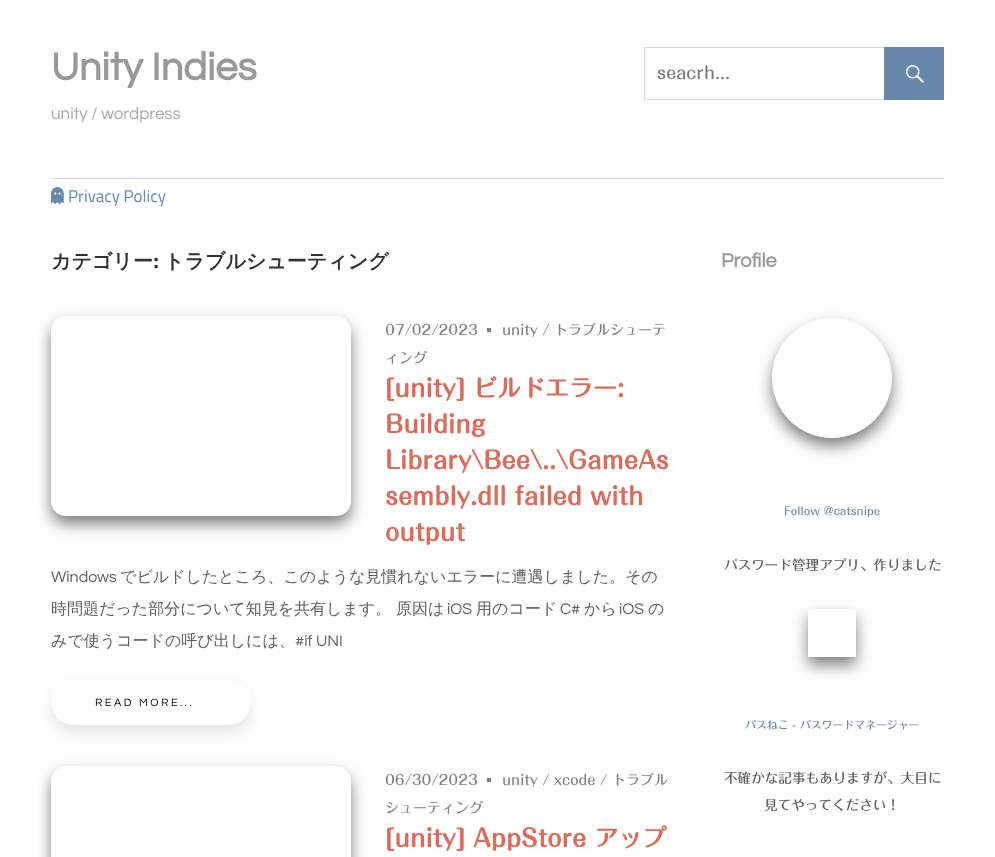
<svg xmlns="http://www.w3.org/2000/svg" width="995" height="857">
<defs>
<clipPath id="clip1"><path d="M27 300h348v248h-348zm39 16h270c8.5 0 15 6.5 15 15v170c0 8.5-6.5 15-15 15h-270c-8.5 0-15-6.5-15-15v-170c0-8.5 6.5-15 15-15z" clip-rule="evenodd"/></clipPath>
<clipPath id="clip2"><path d="M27 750h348v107h-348zm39 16h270c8.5 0 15 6.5 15 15v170c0 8.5-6.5 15-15 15h-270c-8.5 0-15-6.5-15-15v-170c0-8.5 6.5-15 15-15z" clip-rule="evenodd"/></clipPath>
<clipPath id="clip3"><path d="M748 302h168v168h-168zm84 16c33 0 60 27 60 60c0 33-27 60-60 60c-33 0-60-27-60-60c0-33 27-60 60-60z" clip-rule="evenodd"/></clipPath>
<clipPath id="clip4"><path d="M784 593h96v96h-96zm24 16h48v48h-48z" clip-rule="evenodd"/></clipPath>
</defs>
<rect width="100%" height="100%" fill="#fff"/>
<text x="51" y="80" style="font-family:Questrial;font-size:40px;font-weight:bold;fill:#999">Unity Indies</text>
<text x="51" y="119" style="font-family:Questrial;font-size:17px;fill:#aaa">unity / wordpress</text>
<rect x="644.5" y="47.5" width="299" height="52" fill="none" stroke="#d9d9d9"/>
<text x="657" y="79" style="font-family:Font;font-size:17px;font-weight:500;fill:#757575">seacrh...</text>
<rect x="884" y="47" width="60" height="53" fill="#68a"/>
<image x="906" y="65" width="18" height="18" href="media/1.png"/>
<rect x="51" y="178" width="893" height="1" fill="#d9d9d9"/>
<image x="51" y="187" width="13" height="18" href="media/2.png"/>
<text x="68" y="202" style="font-family:Titillium Web;font-size:17px;fill:#68a">Privacy Policy</text>
<text x="51" y="268" style="font-family:WenQuanYi Zen Hei;font-size:20px;font-weight:bold;fill:#303030">カテゴリー</text>
<text x="153" y="268" style="font-family:Amaranth;font-size:20px;font-weight:bold;fill:#303030">:</text>
<text x="164" y="268" style="font-family:WenQuanYi Zen Hei;font-size:20px;font-weight:bold;fill:#303030">トラブルシューティング</text>
<g clip-path="url(#clip1)">
<rect x="51" y="324" width="300" height="200" rx="15" fill="#00000080" filter="blur(7.5px)"/>
</g>
<text x="385" y="335" style="font-family:Font;font-size:14px;font-weight:500;fill:#808080">07/02/2023</text>
<rect x="487" y="328" width="4" height="4" fill="#808080"/>
<text x="502" y="335" style="font-family:Font;font-size:14px;font-weight:500;fill:#808080">unity / トラブルシューテ</text>
<text x="385" y="363" style="font-family:Font;font-size:14px;font-weight:500;fill:#808080">ィング</text>
<text x="385" y="397" style="font-family:Font;font-size:24px;font-weight:bold;fill:#d96c5a">[unity] ビルドエラー:</text>
<text x="385" y="433" style="font-family:Font;font-size:24px;font-weight:bold;fill:#d96c5a">Building</text>
<text x="385" y="469" style="font-family:Font;font-size:24px;font-weight:bold;fill:#d96c5a">Library\Bee\..\GameAs</text>
<text x="385" y="505" style="font-family:Font;font-size:24px;font-weight:bold;fill:#d96c5a">sembly.dll failed with</text>
<text x="385" y="541" style="font-family:Font;font-size:24px;font-weight:bold;fill:#d96c5a">output</text>
<text x="51" y="582" style="font-family:Questrial;font-size:16px;fill:#606060">Windows</text>
<text x="120" y="582" style="font-family:WenQuanYi Zen Hei;font-size:16px;font-weight:500;fill:#606060">でビルドしたところ、このような見慣れないエラーに遭遇しました。その</text>
<text x="51" y="614" style="font-family:WenQuanYi Zen Hei;font-size:16px;font-weight:500;fill:#606060">時問題だった部分について知見を共有します。 原因は</text>
<text x="447" y="614" style="font-family:Questrial;font-size:16px;fill:#606060">iOS</text>
<text x="476" y="614" style="font-family:WenQuanYi Zen Hei;font-size:16px;font-weight:500;fill:#606060">用のコード</text>
<text x="560" y="614" style="font-family:Questrial;font-size:16px;fill:#606060">C#</text>
<text x="584" y="614" style="font-family:WenQuanYi Zen Hei;font-size:16px;font-weight:500;fill:#606060">から</text>
<text x="619" y="614" style="font-family:Questrial;font-size:16px;fill:#606060">iOS</text>
<text x="648" y="614" style="font-family:WenQuanYi Zen Hei;font-size:16px;font-weight:500;fill:#606060">の</text>
<text x="51" y="646" style="font-family:WenQuanYi Zen Hei;font-size:16px;font-weight:500;fill:#606060">みで使うコードの呼び出しには、</text>
<text x="295" y="646" style="font-family:Questrial;font-size:16px;fill:#606060">#if UNI</text>
<rect x="51" y="688" width="200" height="45" rx="22.5" fill="#0000001a" filter="blur(7.5px)"/>
<rect x="51" y="680" width="200" height="45" rx="22.5" fill="#fff"/>
<text x="95" y="706" style="font-family:Questrial;font-size:11px;letter-spacing:2.5px;fill:#000">READ MORE...</text>
<g clip-path="url(#clip2)">
<rect x="51" y="774" width="300" height="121" rx="15" fill="#00000080" filter="blur(7.5px)"/>
</g>
<text x="385" y="785" style="font-family:Font;font-size:14px;font-weight:500;fill:#808080">06/30/2023</text>
<rect x="487" y="778" width="4" height="4" fill="#808080"/>
<text x="502" y="785" style="font-family:Font;font-size:14px;font-weight:500;fill:#808080">unity / xcode / トラブル</text>
<text x="385" y="813" style="font-family:Font;font-size:14px;font-weight:500;fill:#808080">シューティング</text>
<text x="385" y="847" style="font-family:Font;font-size:24px;font-weight:bold;fill:#d96c5a">[unity] AppStore アップ</text>
<text x="721" y="267" style="font-family:Questrial;font-size:20px;font-weight:bold;fill:#999">Profile</text>
<g clip-path="url(#clip3)">
<rect x="772" y="326" width="120" height="120" rx="60" fill="#00000080" filter="blur(7.5px)"/>
</g>
<text x="784" y="515" style="font-family:Font;font-size:10.9px;font-weight:500;fill:#68a">Follow @catsnipe</text>
<text x="724" y="570" style="font-family:Font;font-size:13.6px;font-weight:500;fill:#606060">パスワード管理アプリ、作りました</text>
<g clip-path="url(#clip4)">
<rect x="808" y="617" width="48" height="48" fill="#00000080" filter="blur(7.5px)"/>
</g>
<text x="745" y="729" style="font-family:Font;font-size:10.9px;font-weight:500;fill:#68a">パスねこ - パスワードマネージャー</text>
<text x="724" y="783" style="font-family:Font;font-size:13.6px;font-weight:500;fill:#606060">不確かな記事もありますが、大目に</text>
<text x="764" y="810" style="font-family:Font;font-size:13.6px;font-weight:500;fill:#606060">見てやってください！</text>
</svg>
